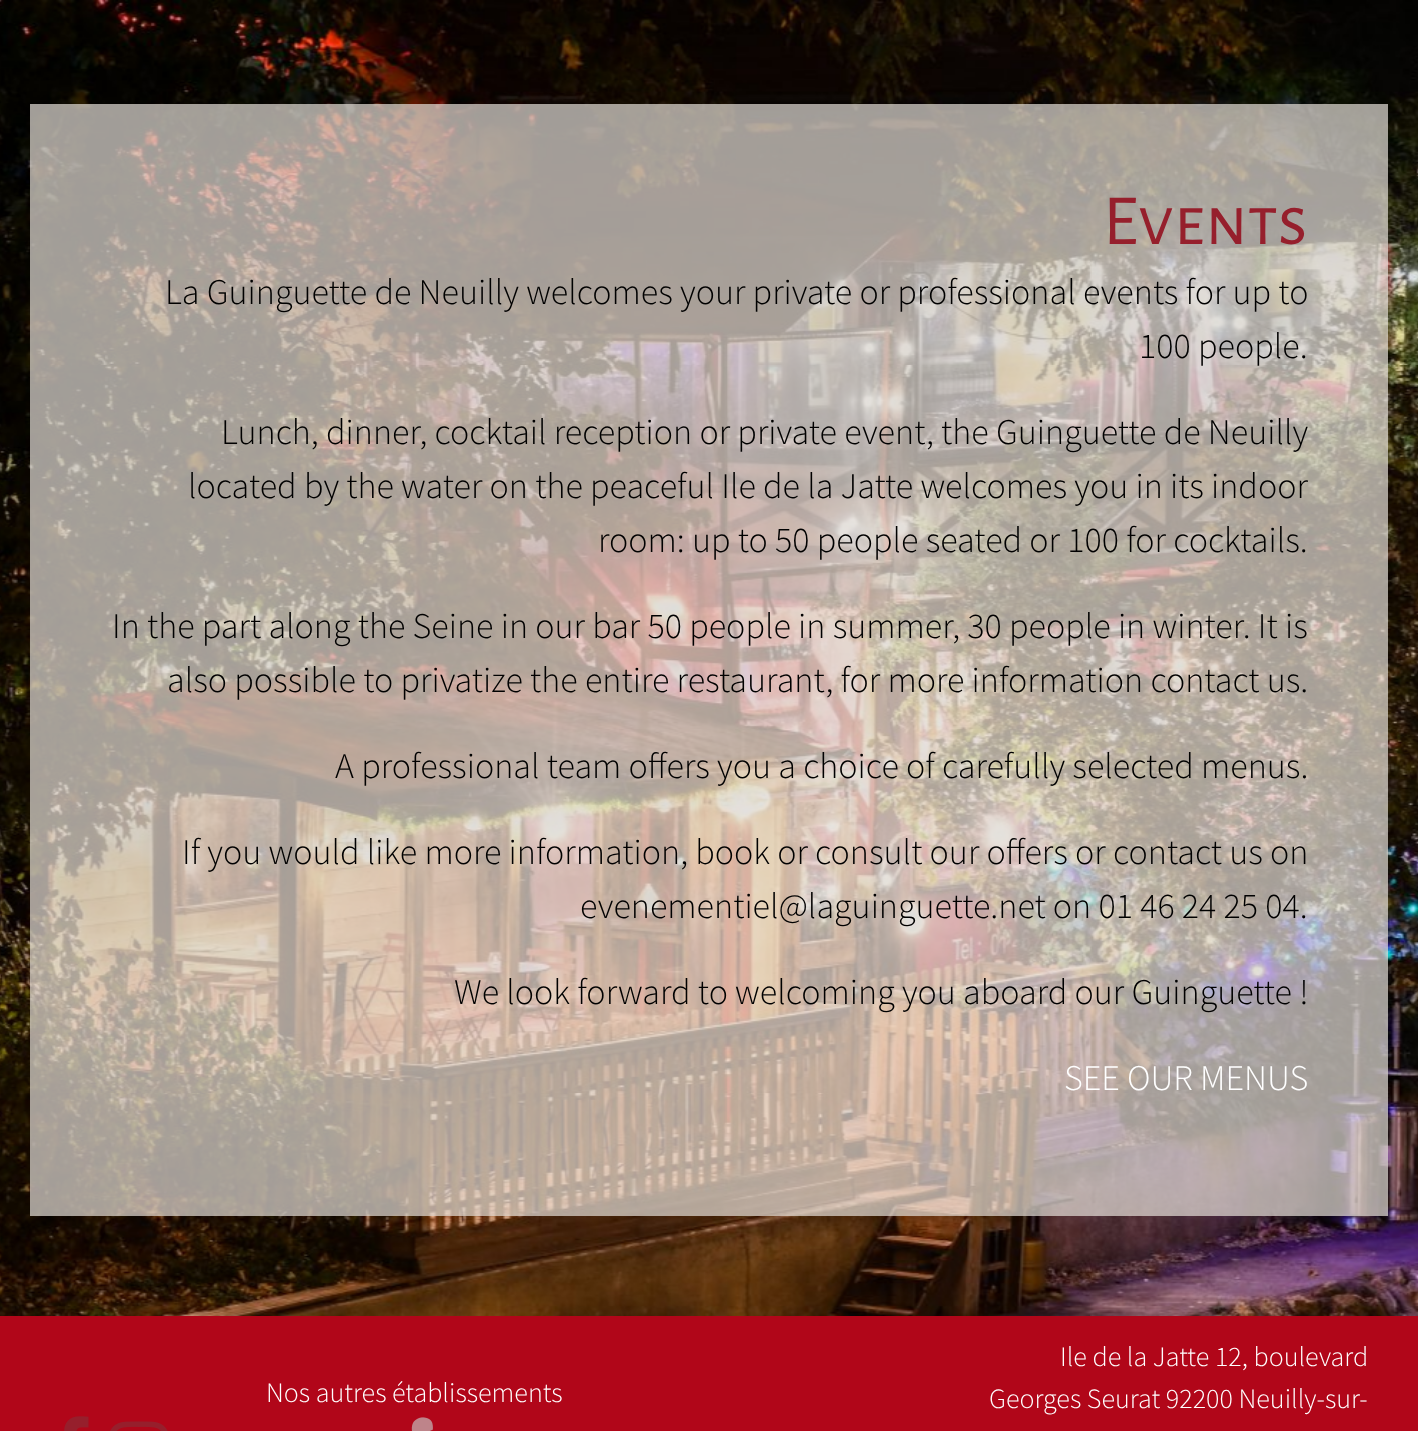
<svg xmlns="http://www.w3.org/2000/svg" width="1418" height="1431">
<rect width="100%" height="100%" fill="#fff"/>
<image x="0" y="0" width="1418" height="1316" href="media/1.png"/>
<rect x="30" y="104" width="1358" height="1112" fill="#e6e0d8b3"/>
<text x="1103" y="244" style="font-family:Alegreya Sans SC;font-size:72px;fill:#961f2c">Events</text>
<text x="165" y="304" style="font-family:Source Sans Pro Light;font-size:36px;font-weight:300;fill:#000">La Guinguette de Neuilly welcomes your private or professional events for up to</text>
<text x="1139" y="358" style="font-family:Source Sans Pro Light;font-size:36px;font-weight:300;fill:#000">100 people.</text>
<text x="221" y="444" style="font-family:Source Sans Pro Light;font-size:36px;font-weight:300;fill:#000">Lunch, dinner, cocktail reception or private event, the Guinguette de Neuilly</text>
<text x="188" y="498" style="font-family:Source Sans Pro Light;font-size:36px;font-weight:300;fill:#000">located by the water on the peaceful Ile de la Jatte welcomes you in its indoor</text>
<text x="598" y="552" style="font-family:Source Sans Pro Light;font-size:36px;font-weight:300;fill:#000">room: up to 50 people seated or 100 for cocktails.</text>
<text x="112" y="638" style="font-family:Source Sans Pro Light;font-size:36px;font-weight:300;fill:#000">In the part along the Seine in our bar 50 people in summer, 30 people in winter. It is</text>
<text x="167" y="692" style="font-family:Source Sans Pro Light;font-size:36px;font-weight:300;fill:#000">also possible to privatize the entire restaurant, for more information contact us.</text>
<text x="335" y="778" style="font-family:Source Sans Pro Light;font-size:36px;font-weight:300;fill:#000">A professional team offers you a choice of carefully selected menus.</text>
<text x="182" y="864" style="font-family:Source Sans Pro Light;font-size:36px;font-weight:300;fill:#000">If you would like more information, book or consult our offers or contact us on</text>
<text x="580" y="918" style="font-family:Source Sans Pro Light;font-size:36px;font-weight:300;fill:#000">evenementiel@laguinguette.net on 01 46 24 25 04.</text>
<text x="454" y="1004" style="font-family:Source Sans Pro Light;font-size:36px;font-weight:300;fill:#000">We look forward to welcoming you aboard our Guinguette !</text>
<text x="1064" y="1090" style="font-family:Source Sans Pro Light;font-size:36px;font-weight:300;fill:#fff">SEE OUR MENUS</text>
<rect y="1316" width="1418" height="115" fill="#b10619"/>
<text x="266" y="1402" style="font-family:Source Sans Pro Light;font-size:28px;font-weight:300;fill:#fff">Nos autres établissements</text>
<image x="411" y="1417" width="22" height="14" href="media/2.png"/>
<text x="1060" y="1366" style="font-family:Source Sans Pro Light;font-size:28px;font-weight:300;fill:#fff">Ile de la Jatte 12, boulevard</text>
<text x="989" y="1408" style="font-family:Source Sans Pro Light;font-size:28px;font-weight:300;fill:#fff">Georges Seurat 92200 Neuilly-sur-</text>
<image x="64" y="1416" width="25" height="15" href="media/3.png"/>
<image x="110" y="1421" width="58" height="10" href="media/4.png"/>
</svg>
